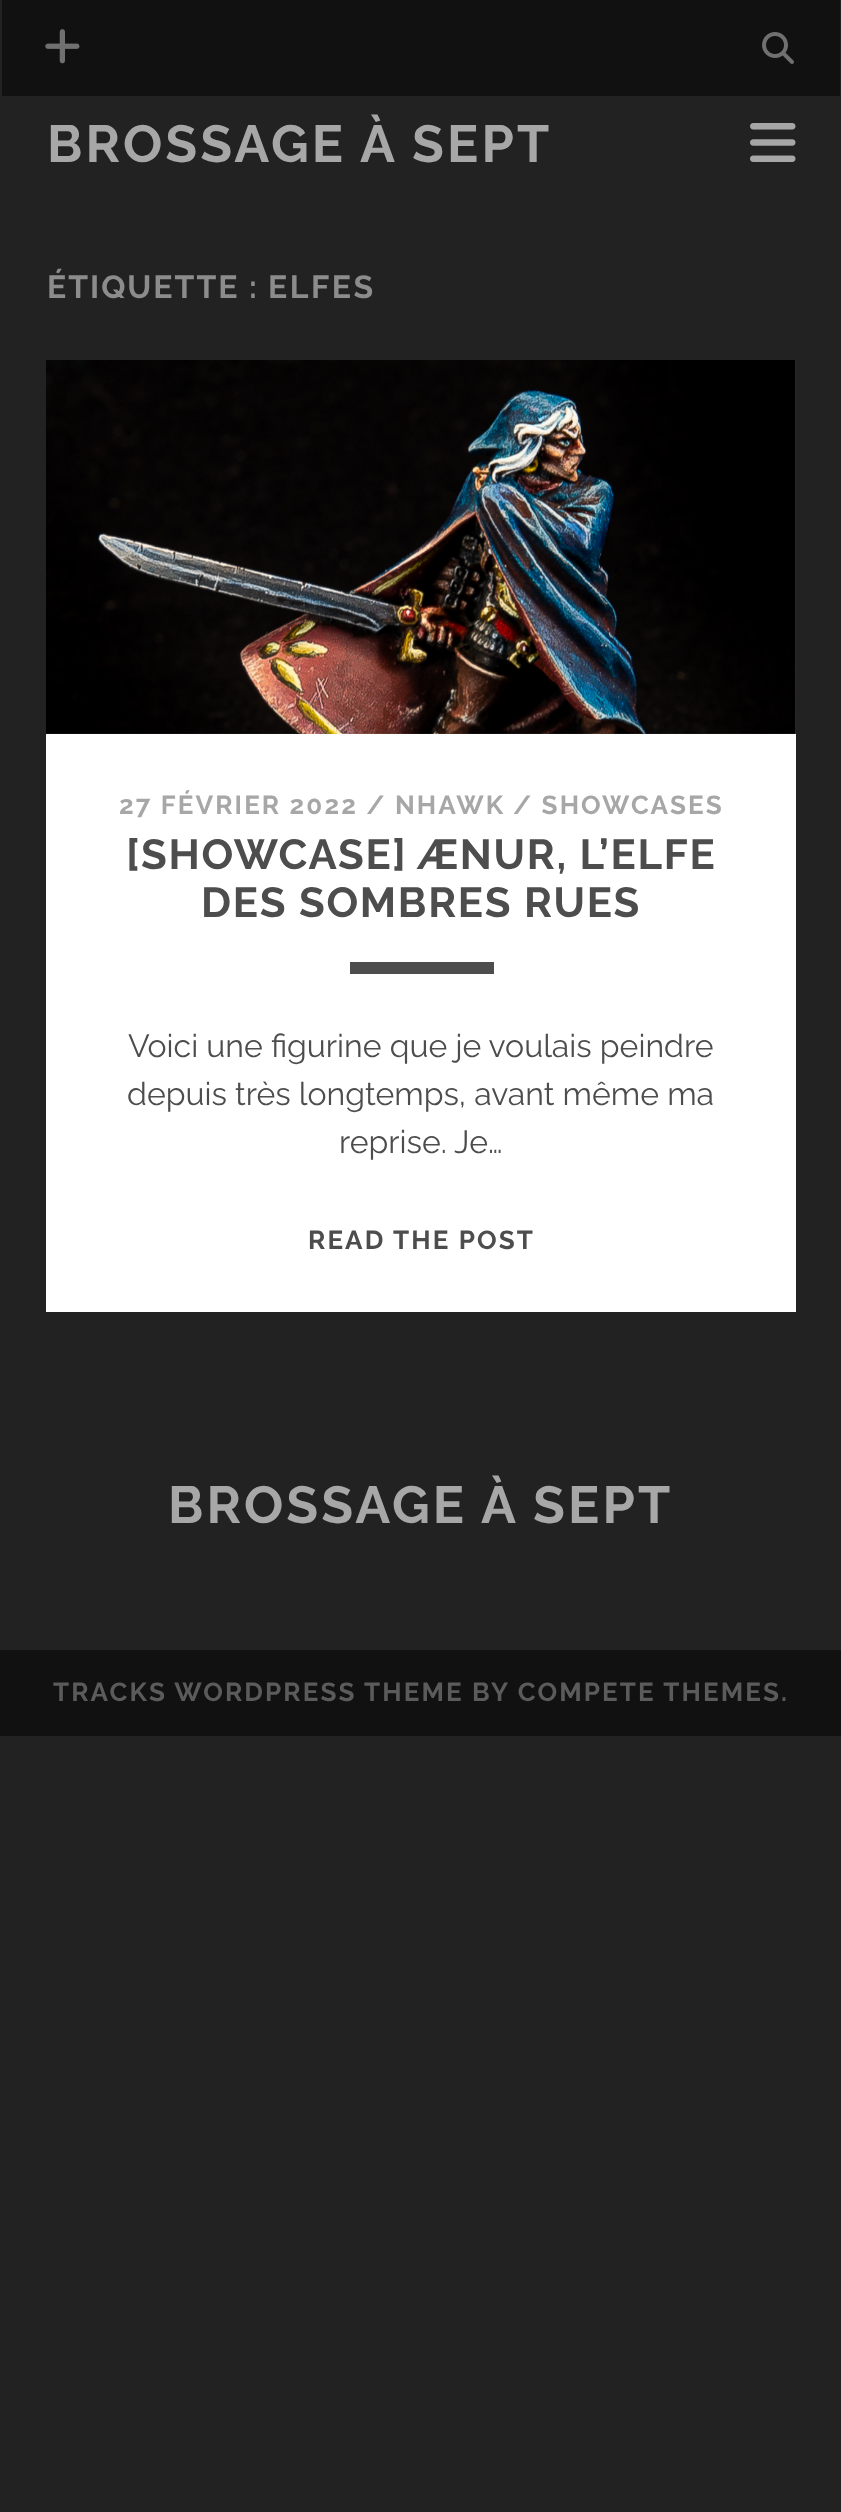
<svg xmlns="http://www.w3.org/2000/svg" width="841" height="2512">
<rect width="100%" height="100%" fill="#222"/>
<rect x="2" width="838" height="96" fill="#111"/>
<image x="45" y="29" width="35" height="35" href="media/1.png"/>
<image x="762" y="32" width="32" height="32" href="media/2.png"/>
<text x="47" y="162" style="font-family:Raleway;font-size:52px;font-weight:bold;letter-spacing:3.1px;fill:#a7a7a7">BROSSAGE À SEPT</text>
<image x="750" y="123" width="46" height="39" href="media/3.png"/>
<text x="47" y="298" style="font-family:Raleway;font-size:32px;font-weight:bold;letter-spacing:2px;fill:#8c8c8c">ÉTIQUETTE :</text>
<text x="268" y="298" style="font-family:Raleway;font-size:32px;font-weight:bold;letter-spacing:2.5px;fill:#8c8c8c">ELFES</text>
<rect x="46" y="360" width="750" height="952" fill="#fff"/>
<image x="46" y="360" width="750" height="374" href="media/4.png"/>
<text x="119" y="814" style="font-family:Raleway;font-size:26px;font-weight:bold;letter-spacing:2.1px;fill:#a7a7a7">27 FÉVRIER 2022 / NHAWK</text>
<text x="513" y="814" style="font-family:Raleway;font-size:26px;font-weight:bold;letter-spacing:2.1px;fill:#a7a7a7">/ SHOWCASES</text>
<text x="126" y="869" style="font-family:Raleway;font-size:42px;font-weight:bold;letter-spacing:1.7px;fill:#4d4d4d">[SHOWCASE] ÆNUR, L’ELFE</text>
<text x="201" y="917" style="font-family:Raleway;font-size:42px;font-weight:bold;letter-spacing:1.7px;fill:#4d4d4d">DES SOMBRES RUES</text>
<rect x="350" y="962" width="144" height="12" fill="#4d4d4d"/>
<text x="128" y="1057" style="font-family:Raleway;font-size:32px;fill:#4d4d4d">Voici une figurine que je voulais peindre</text>
<text x="127" y="1105" style="font-family:Raleway;font-size:32px;fill:#4d4d4d">depuis très longtemps, avant même ma</text>
<text x="339" y="1153" style="font-family:Raleway;font-size:32px;fill:#4d4d4d">reprise. Je…</text>
<text x="308" y="1249" style="font-family:Raleway;font-size:26px;font-weight:bold;letter-spacing:2.1px;fill:#4d4d4d">READ THE POST</text>
<text x="168" y="1523" style="font-family:Raleway;font-size:52px;font-weight:bold;letter-spacing:3.1px;fill:#a7a7a7">BROSSAGE À SEPT</text>
<rect y="1650" width="841" height="86" fill="#111"/>
<text x="53" y="1701" style="font-family:Raleway;font-size:26px;font-weight:bold;letter-spacing:2.1px;fill:#5b5b5b">TRACKS WORDPRESS THEME BY COMPETE THEMES.</text>
</svg>
